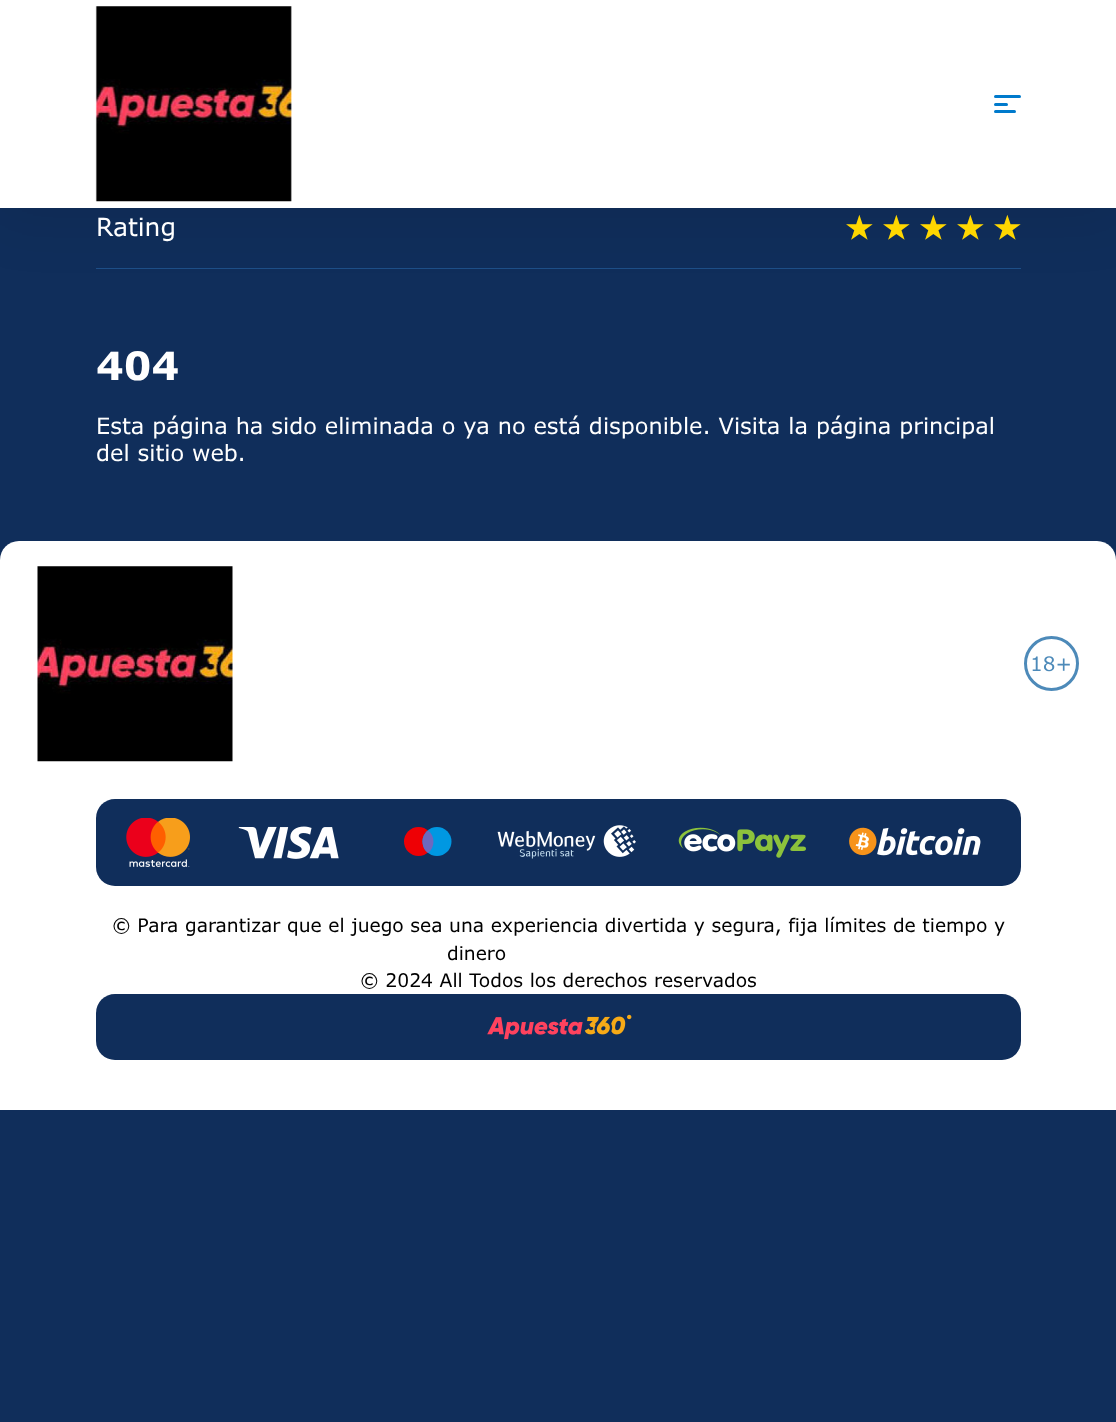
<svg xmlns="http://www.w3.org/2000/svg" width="1116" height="1422">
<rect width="100%" height="100%" fill="#102e5b"/>
<rect x="96" y="268" width="925" height="1" fill="#1e4f88"/>
<rect x="-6" y="-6" width="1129" height="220" fill="#0000001a" filter="blur(31px)"/>
<rect width="1116" height="208" fill="#fff"/>
<image x="95" y="6" width="197" height="196" href="media/1.png"/>
<rect x="994" y="95" width="27" height="3" rx="1.5" fill="#007acc"/>
<rect x="994" y="103" width="14" height="3" rx="1.5" fill="#007acc"/>
<rect x="994" y="110" width="22" height="3" rx="1.5" fill="#007acc"/>
<text x="96" y="236" style="font-family:Verdana;font-size:25px;fill:#fff">Rating</text>
<text x="845" y="239" style="font-family:DejaVu Sans;font-size:31px;font-weight:bold;fill:#ffd700">★</text>
<text x="882" y="239" style="font-family:DejaVu Sans;font-size:31px;font-weight:bold;fill:#ffd700">★</text>
<text x="919" y="239" style="font-family:DejaVu Sans;font-size:31px;font-weight:bold;fill:#ffd700">★</text>
<text x="956" y="239" style="font-family:DejaVu Sans;font-size:31px;font-weight:bold;fill:#ffd700">★</text>
<text x="993" y="239" style="font-family:DejaVu Sans;font-size:31px;font-weight:bold;fill:#ffd700">★</text>
<text x="96" y="380" style="font-family:Verdana;font-size:39px;font-weight:bold;fill:#fff">404</text>
<text x="96" y="434" style="font-family:Verdana;font-size:22.5px;fill:#fff">Esta página ha sido eliminada o ya no está disponible. Visita la página principal</text>
<text x="96" y="461" style="font-family:Verdana;font-size:22.5px;fill:#fff">del sitio web.</text>
<path d="M19 541h1078c10.5 0 19 8.5 19 19v550h-1116v-550c0-10.5 8.5-19 19-19z" fill="#fff"/>
<image x="37" y="566" width="196" height="196" href="media/2.png"/>
<circle cx="1051.5" cy="663.5" r="26" fill="none" stroke="#4d8ab9" stroke-width="3"/>
<text x="1030" y="671" style="font-family:Verdana;font-size:20px;fill:#4d8ab9">18+</text>
<rect x="96" y="799" width="925" height="87" rx="19" fill="#102e5b"/>
<image x="126" y="818" width="64" height="49" href="media/3.png"/>
<image x="238" y="826" width="101" height="33" href="media/4.png"/>
<circle cx="418.5" cy="841.5" r="14.5" fill="#ee0005"/>
<circle cx="437" cy="841.5" r="14.5" fill="#0098e2"/>
<path d="M422.5 841.5c0 5 2 9 5.5 11.5c7-5.5 7.5-17 0-22.5c-3.5 2.5-5.5 6.5-5.5 11z" fill="#6c69bf"/>
<image x="497" y="825" width="139" height="34" href="media/5.png"/>
<image x="678" y="827" width="128" height="31" href="media/6.png"/>
<image x="849" y="827" width="132" height="29" href="media/7.png"/>
<text x="112" y="932" style="font-family:Verdana;font-size:18.75px;fill:#000">© Para garantizar que el juego sea una experiencia divertida y segura, fija límites de tiempo y</text>
<text x="447" y="960" style="font-family:Verdana;font-size:18.75px;fill:#000">dinero</text>
<text x="360" y="987" style="font-family:Verdana;font-size:18.75px;fill:#000">© 2024 All Todos los derechos reservados</text>
<rect x="96" y="994" width="925" height="66" rx="19" fill="#102e5b"/>
<image x="487" y="1014" width="145" height="26" href="media/8.png"/>
</svg>
